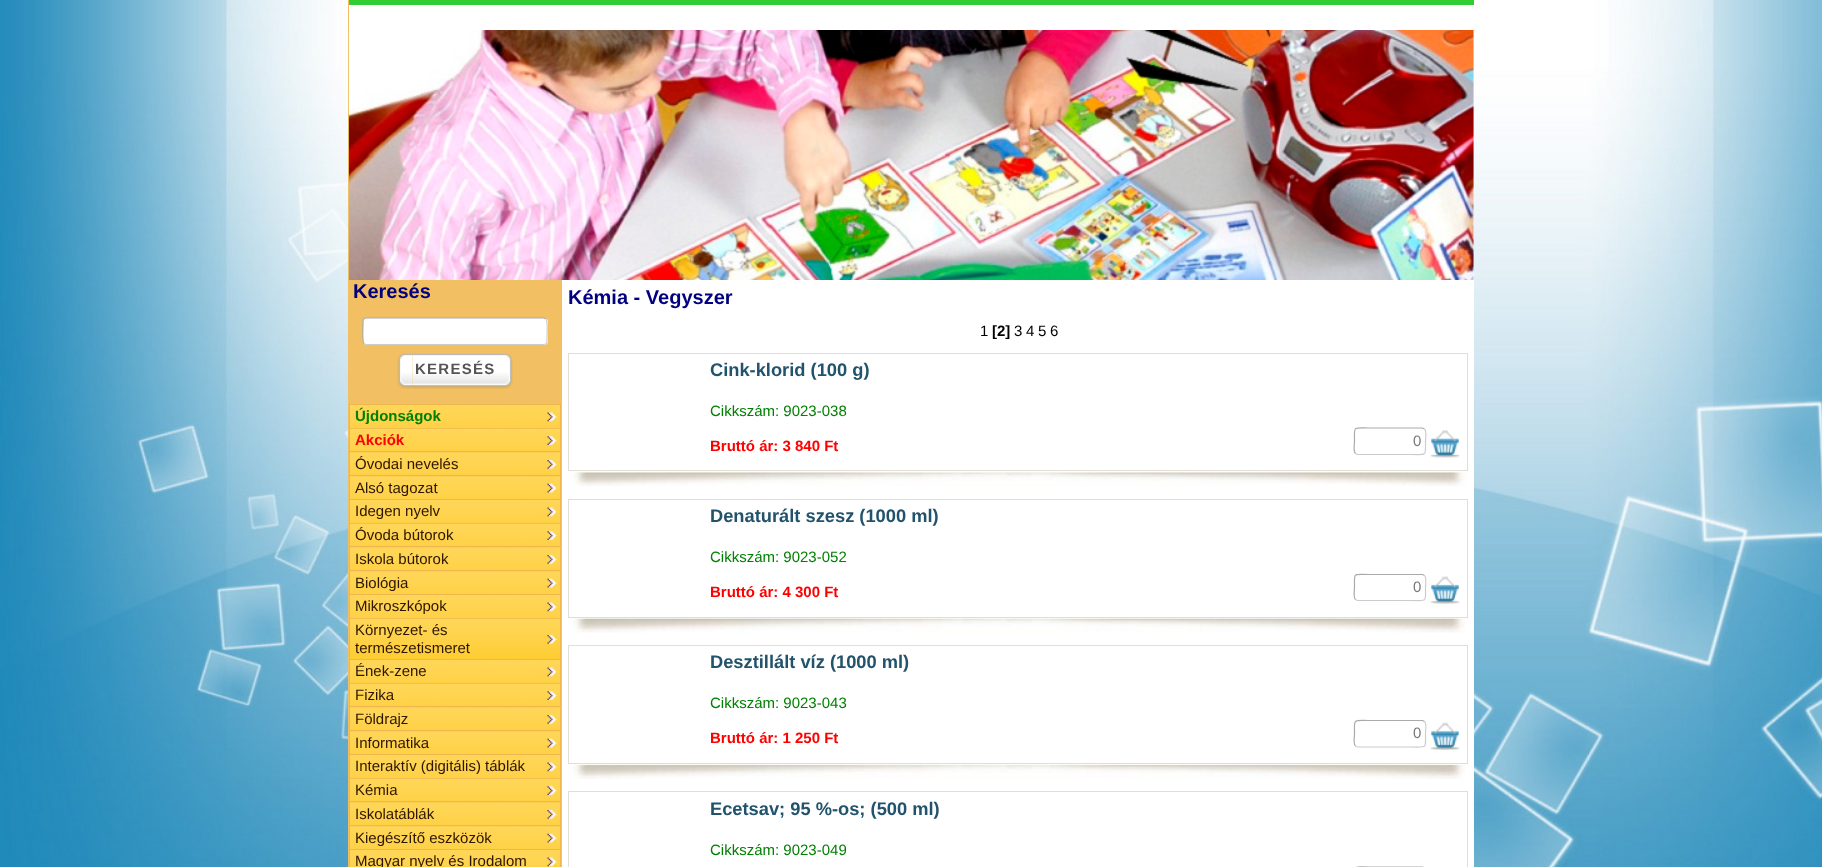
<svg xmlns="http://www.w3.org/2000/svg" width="1822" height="867">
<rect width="100%" height="100%" fill="#fff"/>
<image x="0" y="0" width="1822" height="867" href="media/1.png"/>
<rect x="562" y="255" width="912" height="612" fill="#fff"/>
<rect x="348" width="214" height="867" fill="#f2c062"/>
<rect x="349" width="1125" height="5" fill="#32cd32"/>
<rect x="349" y="5" width="1125" height="250" fill="#fff"/>
<image x="348" y="30" width="1126" height="250" href="media/2.png"/>
<text x="353" y="298" style="font-family:Liberation Sans;font-size:20px;font-weight:bold;fill:#000080">Keresés</text>
<rect x="363" y="318" width="185" height="27" rx="4" fill="#fff"/>
<path d="M546 319c2 2 1 15.5 1 19c0 2.5 .5 6.5-3 6.5h-178l-2-1" fill="none" stroke="#ccc" stroke-width="1.2"/>
<path d="M364 343.5c-2-2-1-15.5-1-19c0-2.5-.5-6.5 3-6.5h178l2 1" fill="none" stroke="#aaa" stroke-width="1.2"/>
<image x="397" y="353" width="16" height="36" href="media/3.png"/>
<image x="412" y="353" width="101" height="36" href="media/4.png"/>
<text x="415" y="374" style="font-family:Liberation Sans;font-size:15px;font-weight:bold;letter-spacing:1.25px;fill:#555">KERESÉS</text>
<rect x="349" y="404" width="212" height="463" fill="#eeb64d"/>
<image x="350" y="405" width="212" height="24" href="media/5.png"/>
<rect x="560" y="405" width="1" height="24" fill="#eeb64d"/>
<rect x="350" y="428" width="211" height="1" fill="#eeb64d"/>
<image x="547" y="412" width="10" height="10" href="media/6.png"/>
<text x="355" y="421" style="font-family:Liberation Sans;font-size:15px;font-weight:bold;fill:#008000">Újdonságok</text>
<image x="350" y="428" width="212" height="25" href="media/7.png"/>
<rect x="560" y="429" width="1" height="24" fill="#eeb64d"/>
<rect x="350" y="451" width="211" height="1" fill="#eeb64d"/>
<image x="547" y="436" width="10" height="9" href="media/8.png"/>
<text x="355" y="445" style="font-family:Liberation Sans;font-size:15px;font-weight:bold;fill:#f00">Akciók</text>
<image x="350" y="452" width="212" height="25" href="media/9.png"/>
<rect x="560" y="453" width="1" height="23" fill="#eeb64d"/>
<rect x="350" y="475" width="211" height="1" fill="#eeb64d"/>
<image x="547" y="460" width="10" height="9" href="media/10.png"/>
<text x="355" y="469" style="font-family:Liberation Sans;font-size:15px;fill:#2d1600">Óvodai nevelés</text>
<image x="350" y="476" width="212" height="24" href="media/11.png"/>
<rect x="560" y="476" width="1" height="24" fill="#eeb64d"/>
<rect x="350" y="499" width="211" height="1" fill="#eeb64d"/>
<image x="547" y="483" width="10" height="10" href="media/12.png"/>
<text x="355" y="493" style="font-family:Liberation Sans;font-size:15px;fill:#2d1600">Alsó tagozat</text>
<image x="350" y="500" width="212" height="24" href="media/13.png"/>
<rect x="560" y="500" width="1" height="24" fill="#eeb64d"/>
<rect x="350" y="523" width="211" height="1" fill="#eeb64d"/>
<image x="547" y="507" width="10" height="10" href="media/14.png"/>
<text x="355" y="516" style="font-family:Liberation Sans;font-size:15px;fill:#2d1600">Idegen nyelv</text>
<image x="350" y="523" width="212" height="25" href="media/15.png"/>
<rect x="560" y="524" width="1" height="24" fill="#eeb64d"/>
<rect x="350" y="546" width="211" height="1" fill="#eeb64d"/>
<image x="547" y="531" width="10" height="9" href="media/8.png"/>
<text x="355" y="540" style="font-family:Liberation Sans;font-size:15px;fill:#2d1600">Óvoda bútorok</text>
<image x="350" y="547" width="212" height="25" href="media/16.png"/>
<rect x="560" y="548" width="1" height="23" fill="#eeb64d"/>
<rect x="350" y="570" width="211" height="1" fill="#eeb64d"/>
<image x="547" y="555" width="10" height="9" href="media/10.png"/>
<text x="355" y="564" style="font-family:Liberation Sans;font-size:15px;fill:#2d1600">Iskola bútorok</text>
<image x="350" y="571" width="212" height="24" href="media/17.png"/>
<rect x="560" y="571" width="1" height="24" fill="#eeb64d"/>
<rect x="350" y="594" width="211" height="1" fill="#eeb64d"/>
<image x="547" y="578" width="10" height="10" href="media/12.png"/>
<text x="355" y="588" style="font-family:Liberation Sans;font-size:15px;fill:#2d1600">Biológia</text>
<image x="350" y="595" width="212" height="24" href="media/18.png"/>
<rect x="560" y="595" width="1" height="24" fill="#eeb64d"/>
<rect x="350" y="618" width="211" height="1" fill="#eeb64d"/>
<image x="547" y="602" width="10" height="10" href="media/19.png"/>
<text x="355" y="611" style="font-family:Liberation Sans;font-size:15px;fill:#2d1600">Mikroszkópok</text>
<image x="350" y="618" width="212" height="42" href="media/20.png"/>
<rect x="560" y="619" width="1" height="41" fill="#eeb64d"/>
<rect x="350" y="659" width="211" height="1" fill="#eeb64d"/>
<image x="547" y="635" width="10" height="9" href="media/21.png"/>
<text x="355" y="635" style="font-family:Liberation Sans;font-size:15px;fill:#2d1600">Környezet- és</text>
<text x="355" y="653" style="font-family:Liberation Sans;font-size:15px;fill:#2d1600">természetismeret</text>
<image x="350" y="660" width="212" height="24" href="media/5.png"/>
<rect x="560" y="660" width="1" height="24" fill="#eeb64d"/>
<rect x="350" y="683" width="211" height="1" fill="#eeb64d"/>
<image x="547" y="667" width="10" height="10" href="media/14.png"/>
<text x="355" y="676" style="font-family:Liberation Sans;font-size:15px;fill:#2d1600">Ének-zene</text>
<image x="350" y="683" width="212" height="25" href="media/22.png"/>
<rect x="560" y="684" width="1" height="24" fill="#eeb64d"/>
<rect x="350" y="706" width="211" height="1" fill="#eeb64d"/>
<image x="547" y="691" width="10" height="9" href="media/8.png"/>
<text x="355" y="700" style="font-family:Liberation Sans;font-size:15px;fill:#2d1600">Fizika</text>
<image x="350" y="707" width="212" height="25" href="media/23.png"/>
<rect x="560" y="708" width="1" height="23" fill="#eeb64d"/>
<rect x="350" y="730" width="211" height="1" fill="#eeb64d"/>
<image x="547" y="715" width="10" height="9" href="media/10.png"/>
<text x="355" y="724" style="font-family:Liberation Sans;font-size:15px;fill:#2d1600">Földrajz</text>
<image x="350" y="731" width="212" height="24" href="media/24.png"/>
<rect x="560" y="731" width="1" height="24" fill="#eeb64d"/>
<rect x="350" y="754" width="211" height="1" fill="#eeb64d"/>
<image x="547" y="738" width="10" height="10" href="media/12.png"/>
<text x="355" y="748" style="font-family:Liberation Sans;font-size:15px;fill:#2d1600">Informatika</text>
<image x="350" y="755" width="212" height="24" href="media/25.png"/>
<rect x="560" y="755" width="1" height="24" fill="#eeb64d"/>
<rect x="350" y="778" width="211" height="1" fill="#eeb64d"/>
<image x="547" y="762" width="10" height="10" href="media/14.png"/>
<text x="355" y="771" style="font-family:Liberation Sans;font-size:15px;fill:#2d1600">Interaktív (digitális) táblák</text>
<image x="350" y="778" width="212" height="25" href="media/7.png"/>
<rect x="560" y="779" width="1" height="24" fill="#eeb64d"/>
<rect x="350" y="801" width="211" height="1" fill="#eeb64d"/>
<image x="547" y="786" width="10" height="9" href="media/8.png"/>
<text x="355" y="795" style="font-family:Liberation Sans;font-size:15px;fill:#2d1600">Kémia</text>
<image x="350" y="802" width="212" height="25" href="media/23.png"/>
<rect x="560" y="803" width="1" height="23" fill="#eeb64d"/>
<rect x="350" y="825" width="211" height="1" fill="#eeb64d"/>
<image x="547" y="810" width="10" height="9" href="media/10.png"/>
<text x="355" y="819" style="font-family:Liberation Sans;font-size:15px;fill:#2d1600">Iskolatáblák</text>
<image x="350" y="826" width="212" height="24" href="media/26.png"/>
<rect x="560" y="826" width="1" height="24" fill="#eeb64d"/>
<rect x="350" y="849" width="211" height="1" fill="#eeb64d"/>
<image x="547" y="833" width="10" height="10" href="media/27.png"/>
<text x="355" y="843" style="font-family:Liberation Sans;font-size:15px;fill:#2d1600">Kiegészítő eszközök</text>
<image x="350" y="850" width="212" height="17" href="media/28.png"/>
<rect x="560" y="850" width="1" height="17" fill="#eeb64d"/>
<image x="547" y="857" width="10" height="10" href="media/14.png"/>
<text x="355" y="866" style="font-family:Liberation Sans;font-size:15px;fill:#2d1600">Magyar nyelv és Irodalom</text>
<text x="568" y="304" style="font-family:Liberation Sans;font-size:20px;font-weight:bold;fill:#000080">Kémia - Vegyszer</text>
<text x="980" y="336" style="font-family:Liberation Sans;font-size:15px;fill:#000">1</text>
<text x="992" y="336" style="font-family:Liberation Sans;font-size:15px;font-weight:bold;fill:#000">[2]</text>
<text x="1014" y="336" style="font-family:Liberation Sans;font-size:15px;fill:#000">3</text>
<text x="1026" y="336" style="font-family:Liberation Sans;font-size:15px;fill:#000">4</text>
<text x="1038" y="336" style="font-family:Liberation Sans;font-size:15px;fill:#000">5</text>
<text x="1050" y="336" style="font-family:Liberation Sans;font-size:15px;fill:#000">6</text>
<image x="573" y="471" width="894" height="15" href="media/29.png"/>
<rect x="568.5" y="353.5" width="899" height="117" fill="none" stroke="#e2ded6"/>
<text x="710" y="376" style="font-family:Liberation Sans;font-size:18.3px;font-weight:bold;fill:#22536c">Cink-klorid (100 g)</text>
<text x="710" y="416" style="font-family:Liberation Sans;font-size:15px;fill:#008000">Cikkszám: 9023-038</text>
<text x="710" y="451" style="font-family:Liberation Sans;font-size:15px;font-weight:bold;fill:#f00">Bruttó ár: 3 840 Ft</text>
<path d="M1424.5 429c2.5 2 1 9.5 1 12c0 15.5 2 13.5-14 13.5h-54l-2-1" fill="none" stroke="#ccc" stroke-width="1.2"/>
<path d="M1355.5 453.5c-2.5-2-1-9.5-1-12.5c0-15-2-13 14-13h54l2 1" fill="none" stroke="#aaa" stroke-width="1.2"/>
<text x="1413" y="446" style="font-family:Liberation Sans;font-size:15px;fill:#777">0</text>
<image x="1430" y="430" width="30" height="28" href="media/30.png"/>
<image x="573" y="618" width="894" height="15" href="media/31.png"/>
<rect x="568.5" y="499.5" width="899" height="118" fill="none" stroke="#e2ded6"/>
<text x="710" y="522" style="font-family:Liberation Sans;font-size:18.3px;font-weight:bold;fill:#22536c">Denaturált szesz (1000 ml)</text>
<text x="710" y="562" style="font-family:Liberation Sans;font-size:15px;fill:#008000">Cikkszám: 9023-052</text>
<text x="710" y="597" style="font-family:Liberation Sans;font-size:15px;font-weight:bold;fill:#f00">Bruttó ár: 4 300 Ft</text>
<path d="M1424.5 575.5c2.5 2 1 9.5 1 12c0 15.5 2 13-14 13h-54l-2-1" fill="none" stroke="#ccc" stroke-width="1.2"/>
<path d="M1355.5 599.5c-2.5-2-1-9.5-1-12c0-15.5-2-13 14-13h54l2 1" fill="none" stroke="#aaa" stroke-width="1.2"/>
<text x="1413" y="592" style="font-family:Liberation Sans;font-size:15px;fill:#777">0</text>
<image x="1430" y="576" width="30" height="28" href="media/32.png"/>
<image x="573" y="764" width="892" height="15" href="media/33.png"/>
<rect x="568.5" y="645.5" width="899" height="118" fill="none" stroke="#e2ded6"/>
<text x="710" y="668" style="font-family:Liberation Sans;font-size:18.3px;font-weight:bold;fill:#22536c">Desztillált víz (1000 ml)</text>
<text x="710" y="708" style="font-family:Liberation Sans;font-size:15px;fill:#008000">Cikkszám: 9023-043</text>
<text x="710" y="743" style="font-family:Liberation Sans;font-size:15px;font-weight:bold;fill:#f00">Bruttó ár: 1 250 Ft</text>
<path d="M1424.5 721.5c2.5 2 1 9.5 1 12.5c0 15 2 13-14 13h-54l-2-1" fill="none" stroke="#ccc" stroke-width="1.2"/>
<path d="M1355.5 746c-2.5-2-1-9.5-1-12c0-15.5-2-13.5 14-13.5h54l2 1" fill="none" stroke="#aaa" stroke-width="1.2"/>
<text x="1413" y="738" style="font-family:Liberation Sans;font-size:15px;fill:#777">0</text>
<image x="1430" y="722" width="30" height="28" href="media/34.png"/>
<rect x="568.5" y="791.5" width="899" height="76" fill="none" stroke="#e2ded6"/>
<text x="710" y="815" style="font-family:Liberation Sans;font-size:18.3px;font-weight:bold;fill:#22536c">Ecetsav; 95 %-os; (500 ml)</text>
<text x="710" y="855" style="font-family:Liberation Sans;font-size:15px;fill:#008000">Cikkszám: 9023-049</text>
<path d="M1355.5 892c-2.5-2-1-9.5-1-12c0-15.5-2-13 14-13h54l2 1" fill="none" stroke="#aaa" stroke-width="1.2"/>
</svg>
